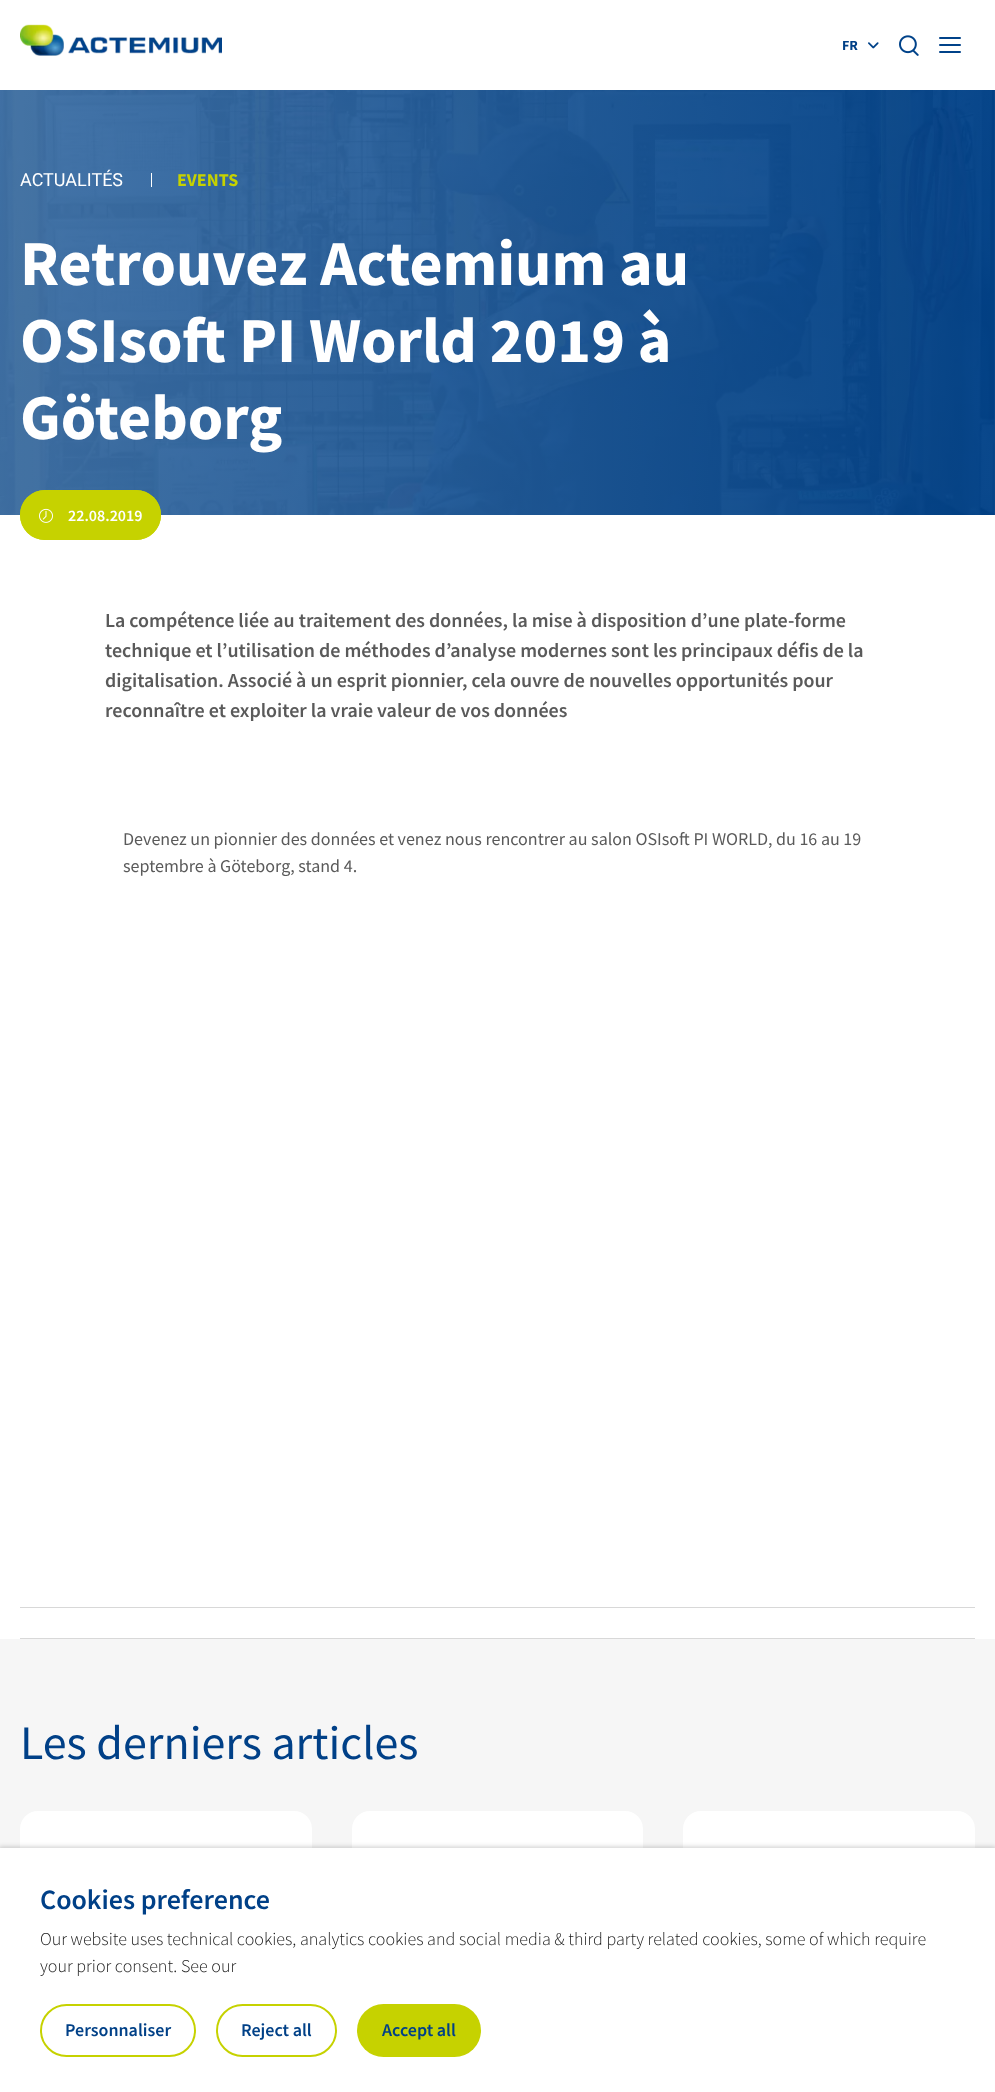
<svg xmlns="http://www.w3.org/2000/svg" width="995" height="2092">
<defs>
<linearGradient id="g1" gradientUnits="userSpaceOnUse" x1="0" y1="303" x2="995" y2="302"><stop offset="0" stop-color="#4b79ab" stop-opacity="0.8"/><stop offset="1" stop-color="#004087" stop-opacity="0.8"/></linearGradient>
</defs>
<rect width="100%" height="100%" fill="#fff"/>
<image x="20" y="24" width="202" height="32" href="media/1.png"/>
<text x="842" y="50" style="font-family:Source Sans Pro;font-size:14px;font-weight:bold;fill:#004087">FR</text>
<image x="868" y="42" width="11" height="7" href="media/2.png"/>
<image x="899" y="35" width="20" height="21" href="media/3.png"/>
<rect x="939" y="44" width="22" height="2" rx="1" fill="#004289"/>
<rect x="939" y="37" width="22" height="2" rx="1" fill="#004289"/>
<rect x="939" y="51" width="22" height="2" rx="1" fill="#004289"/>
<image x="0" y="90" width="995" height="425" href="media/4.png"/>
<rect y="90" width="995" height="425" fill="url(#g1)"/>
<text x="20" y="186" style="font-family:Roboto;font-size:18px;fill:#fff">ACTUALITÉS</text>
<rect x="151" y="173" width="1" height="14" fill="#fff"/>
<text x="177" y="186" style="font-family:Source Sans Pro;font-size:18px;font-weight:bold;fill:#c6d200">EVENTS</text>
<text x="20" y="285" style="font-family:Source Sans Pro;font-size:64px;font-weight:bold;fill:#fff">Retrouvez Actemium au</text>
<text x="20" y="362" style="font-family:Source Sans Pro;font-size:64px;font-weight:bold;fill:#fff">OSIsoft PI World 2019 à</text>
<text x="20" y="439" style="font-family:Source Sans Pro;font-size:64px;font-weight:bold;fill:#fff">Göteborg</text>
<rect x="21" y="491" width="139" height="48" rx="24" fill="none" stroke="#c6d200" stroke-width="2"/>
<rect x="20" y="490" width="141" height="50" rx="25" fill="#c6d200"/>
<image x="39" y="508" width="14" height="15" href="media/5.png"/>
<text x="68" y="521" style="font-family:Source Sans Pro;font-size:16px;font-weight:600;fill:#fff">22.08.2019</text>
<text x="105" y="627" style="font-family:Source Sans Pro;font-size:20px;font-weight:600;fill:#5a5a5a">La compétence liée au traitement des données, la mise à disposition d’une plate-forme</text>
<text x="105" y="657" style="font-family:Source Sans Pro;font-size:20px;font-weight:600;fill:#5a5a5a">technique et l’utilisation de méthodes d’analyse modernes sont les principaux défis de la</text>
<text x="105" y="687" style="font-family:Source Sans Pro;font-size:20px;font-weight:600;fill:#5a5a5a">digitalisation. Associé à un esprit pionnier, cela ouvre de nouvelles opportunités pour</text>
<text x="105" y="717" style="font-family:Source Sans Pro;font-size:20px;font-weight:600;fill:#5a5a5a">reconnaître et exploiter la vraie valeur de vos données</text>
<text x="123" y="845" style="font-family:Source Sans Pro;font-size:18px;fill:#5a5a5a">Devenez un pionnier des données et venez nous rencontrer au salon OSIsoft PI WORLD, du 16 au 19</text>
<text x="123" y="872" style="font-family:Source Sans Pro;font-size:18px;fill:#5a5a5a">septembre à Göteborg, stand 4.</text>
<rect x="20" y="1607" width="955" height="1" fill="#d8d8d8"/>
<rect x="20" y="1638" width="955" height="1" fill="#d8d8d8"/>
<rect y="1639" width="995" height="209" fill="#f6f6f6"/>
<text x="20" y="1759" style="font-family:Source Sans Pro;font-size:48px;fill:#004087">Les derniers articles</text>
<rect x="20" y="1811" width="292" height="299" rx="18" fill="#fff"/>
<rect x="352" y="1811" width="291" height="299" rx="18" fill="#fff"/>
<rect x="683" y="1811" width="292" height="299" rx="18" fill="#fff"/>
<rect x="-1" y="1847" width="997" height="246" fill="#00000033" filter="blur(2.5px)"/>
<rect y="1848" width="995" height="244" fill="#fff"/>
<text x="40" y="1909" style="font-family:Source Sans Pro;font-size:28px;font-weight:600;fill:#004087">Cookies preference</text>
<text x="40" y="1945" style="font-family:Source Sans Pro;font-size:18px;font-weight:300;fill:#181818">Our website uses technical cookies, analytics cookies and social media &amp; third party related cookies, some of which require</text>
<text x="40" y="1972" style="font-family:Source Sans Pro;font-size:18px;font-weight:300;fill:#181818">your prior consent. See our</text>
<rect x="41" y="2005" width="154" height="51" rx="25.5" fill="none" stroke="#c6d200" stroke-width="2"/>
<text x="65" y="2036" style="font-family:Source Sans Pro;font-size:18px;font-weight:600;fill:#004087">Personnaliser</text>
<rect x="217" y="2005" width="119" height="51" rx="25.5" fill="none" stroke="#c6d200" stroke-width="2"/>
<text x="241" y="2036" style="font-family:Source Sans Pro;font-size:18px;font-weight:600;fill:#004087">Reject all</text>
<rect x="357" y="2004" width="124" height="53" rx="26.5" fill="#c6d200"/>
<text x="382" y="2036" style="font-family:Source Sans Pro;font-size:18px;font-weight:600;fill:#004087">Accept all</text>
</svg>
